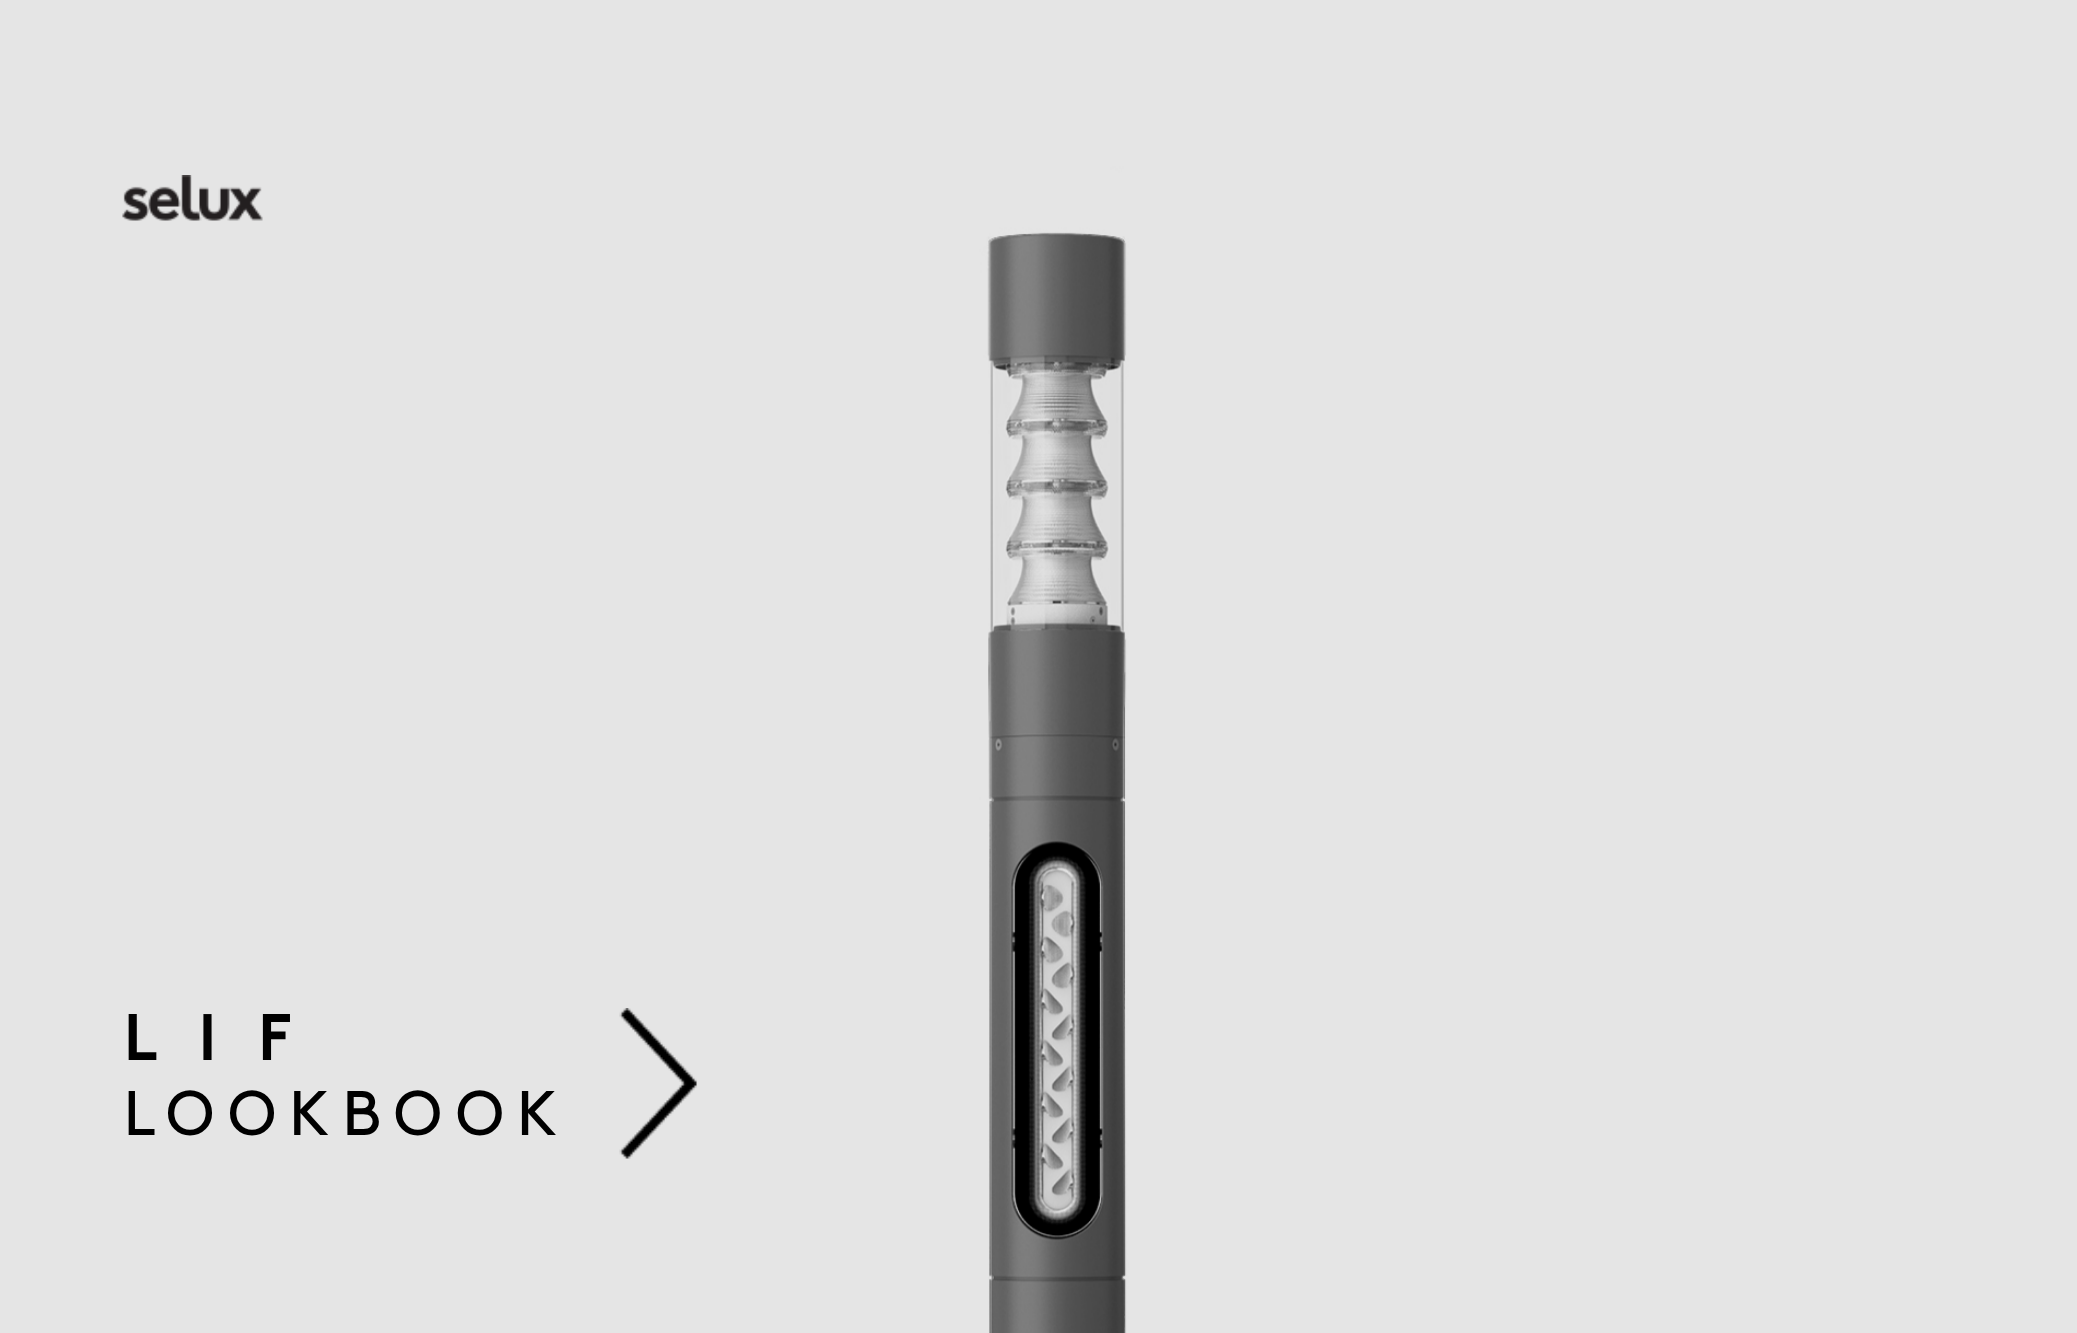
<svg xmlns="http://www.w3.org/2000/svg" width="2077" height="1333">
<rect width="100%" height="100%" fill="#fff"/>
<image x="0" y="0" width="2077" height="1333" href="media/1.png"/>
<image x="122" y="175" width="141" height="46" href="media/2.png"/>
<image x="619" y="1008" width="78" height="151" href="media/3.png"/>
<text x="123" y="1060" style="font-family:'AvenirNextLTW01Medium';font-size:63px;font-weight:bold;letter-spacing:42px;fill:#000">LIF</text>
<text x="123" y="1135" style="font-family:'AvenirNextLTW01Medium';font-size:63px;letter-spacing:12.25px;fill:#000">LOOKBOOK</text>
</svg>
